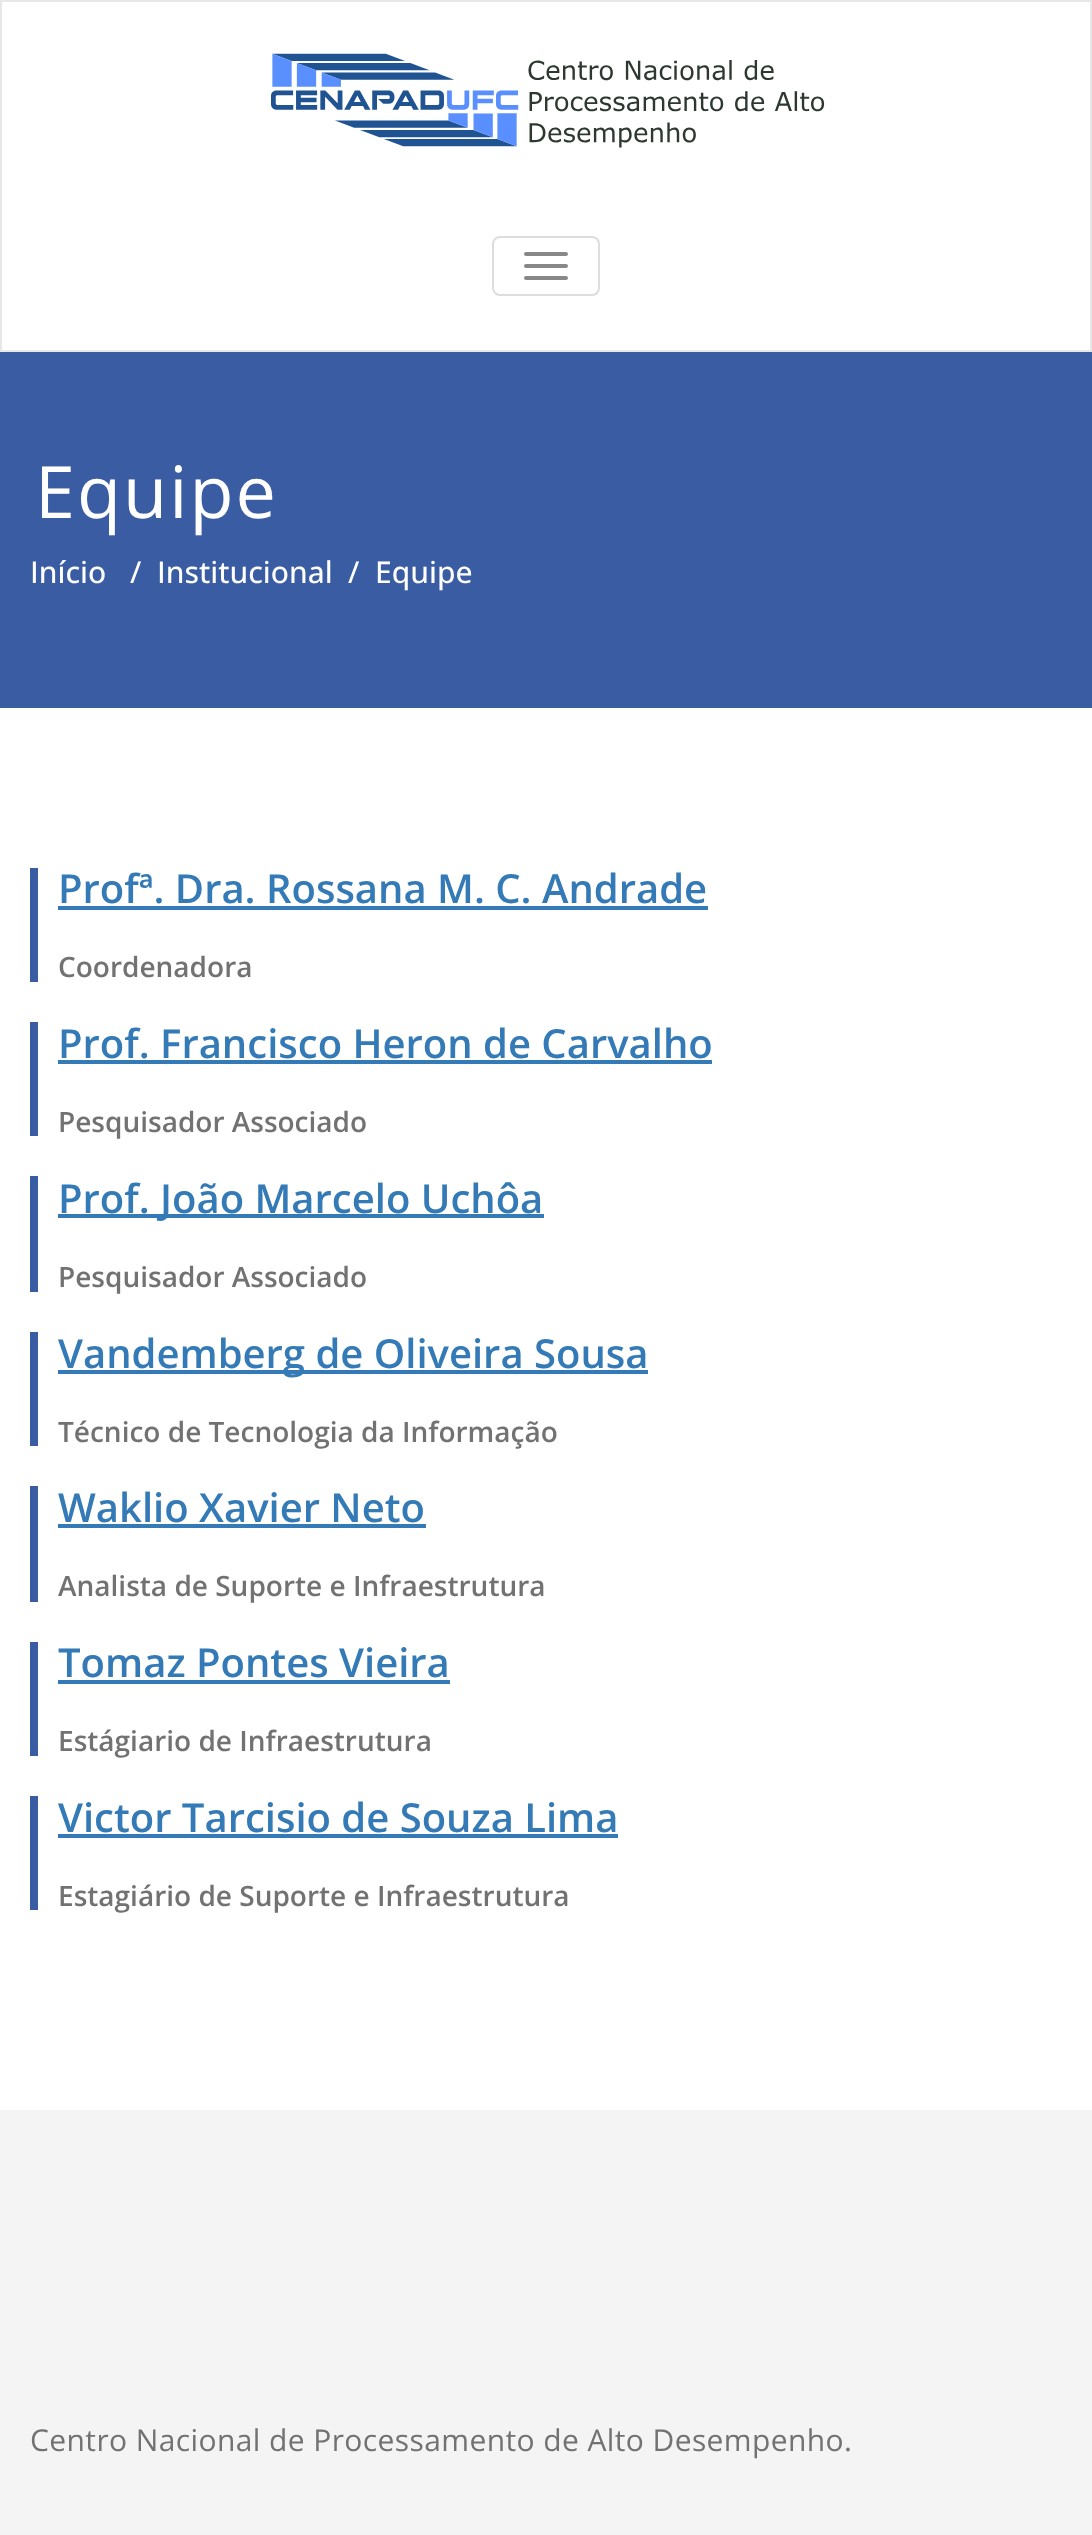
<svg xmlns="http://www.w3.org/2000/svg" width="1092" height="2535">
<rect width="100%" height="100%" fill="#fff"/>
<rect x="1" y="1" width="1090" height="350" fill="none" stroke="#e7e7e7" stroke-width="2"/>
<image x="271" y="53" width="554" height="95" href="media/1.png"/>
<rect x="493" y="237" width="106" height="58" rx="7" fill="none" stroke="#ddd" stroke-width="2"/>
<rect x="524" y="252" width="44" height="4" rx="2" fill="#888"/>
<rect x="524" y="264" width="44" height="4" rx="2" fill="#888"/>
<rect x="524" y="276" width="44" height="4" rx="2" fill="#888"/>
<rect y="352" width="1092" height="356" fill="#395ca3"/>
<text x="35" y="518" style="font-family:Open Sans;font-size:72px;letter-spacing:2px;fill:#fff">Equipe</text>
<text x="30" y="583" style="font-family:Open Sans;font-size:30px;font-weight:500;fill:#fff">Início</text>
<text x="130" y="583" style="font-family:Open Sans;font-size:30px;font-weight:500;fill:#fff">/</text>
<text x="157" y="583" style="font-family:Open Sans;font-size:30px;font-weight:500;fill:#fff">Institucional</text>
<text x="348" y="583" style="font-family:Open Sans;font-size:30px;font-weight:500;fill:#fff">/</text>
<text x="375" y="583" style="font-family:Open Sans;font-size:30px;font-weight:500;fill:#fff">Equipe</text>
<rect x="30" y="868" width="8" height="114" fill="#395ca3"/>
<text x="58" y="903" style="font-family:Open Sans;font-size:40px;font-weight:600;fill:#337ab7">Profª. Dra. Rossana M. C. Andrade</text>
<rect x="58" y="906" width="650" height="4" fill="#337ab7"/>
<text x="58" y="977" style="font-family:Open Sans;font-size:28px;font-weight:600;fill:#727272">Coordenadora</text>
<rect x="30" y="1022" width="8" height="114" fill="#395ca3"/>
<text x="58" y="1058" style="font-family:Open Sans;font-size:40px;font-weight:600;fill:#337ab7">Prof. Francisco Heron de Carvalho</text>
<rect x="58" y="1060" width="654" height="4" fill="#337ab7"/>
<text x="58" y="1132" style="font-family:Open Sans;font-size:28px;font-weight:600;fill:#727272">Pesquisador Associado</text>
<rect x="30" y="1176" width="8" height="116" fill="#395ca3"/>
<rect x="58" y="1214" width="486" height="4" fill="#337ab7"/>
<text x="58" y="1213" style="font-family:Open Sans;font-size:40px;font-weight:600;fill:#337ab7">Prof. João Marcelo Uchôa</text>
<text x="58" y="1287" style="font-family:Open Sans;font-size:28px;font-weight:600;fill:#727272">Pesquisador Associado</text>
<rect x="30" y="1332" width="8" height="114" fill="#395ca3"/>
<rect x="58" y="1370" width="590" height="4" fill="#337ab7"/>
<text x="58" y="1368" style="font-family:Open Sans;font-size:40px;font-weight:600;fill:#337ab7">Vandemberg de Oliveira Sousa</text>
<text x="58" y="1442" style="font-family:Open Sans;font-size:28px;font-weight:600;fill:#727272">Técnico de Tecnologia da Informação</text>
<rect x="30" y="1486" width="8" height="116" fill="#395ca3"/>
<text x="58" y="1522" style="font-family:Open Sans;font-size:40px;font-weight:600;fill:#337ab7">Waklio Xavier Neto</text>
<rect x="58" y="1524" width="368" height="4" fill="#337ab7"/>
<text x="58" y="1596" style="font-family:Open Sans;font-size:28px;font-weight:600;fill:#727272">Analista de Suporte e Infraestrutura</text>
<rect x="30" y="1642" width="8" height="114" fill="#395ca3"/>
<text x="58" y="1677" style="font-family:Open Sans;font-size:40px;font-weight:600;fill:#337ab7">Tomaz Pontes Vieira</text>
<rect x="58" y="1680" width="392" height="4" fill="#337ab7"/>
<text x="58" y="1751" style="font-family:Open Sans;font-size:28px;font-weight:600;fill:#727272">Estágiario de Infraestrutura</text>
<rect x="30" y="1796" width="8" height="114" fill="#395ca3"/>
<text x="58" y="1832" style="font-family:Open Sans;font-size:40px;font-weight:600;fill:#337ab7">Victor Tarcisio de Souza Lima</text>
<rect x="58" y="1834" width="560" height="4" fill="#337ab7"/>
<text x="58" y="1906" style="font-family:Open Sans;font-size:28px;font-weight:600;fill:#727272">Estagiário de Suporte e Infraestrutura</text>
<rect y="2110" width="1092" height="425" fill="#f4f4f4"/>
<text x="30" y="2451" style="font-family:Open Sans;font-size:30px;letter-spacing:0.4px;fill:#727272">Centro Nacional de Processamento de Alto Desempenho.</text>
</svg>
